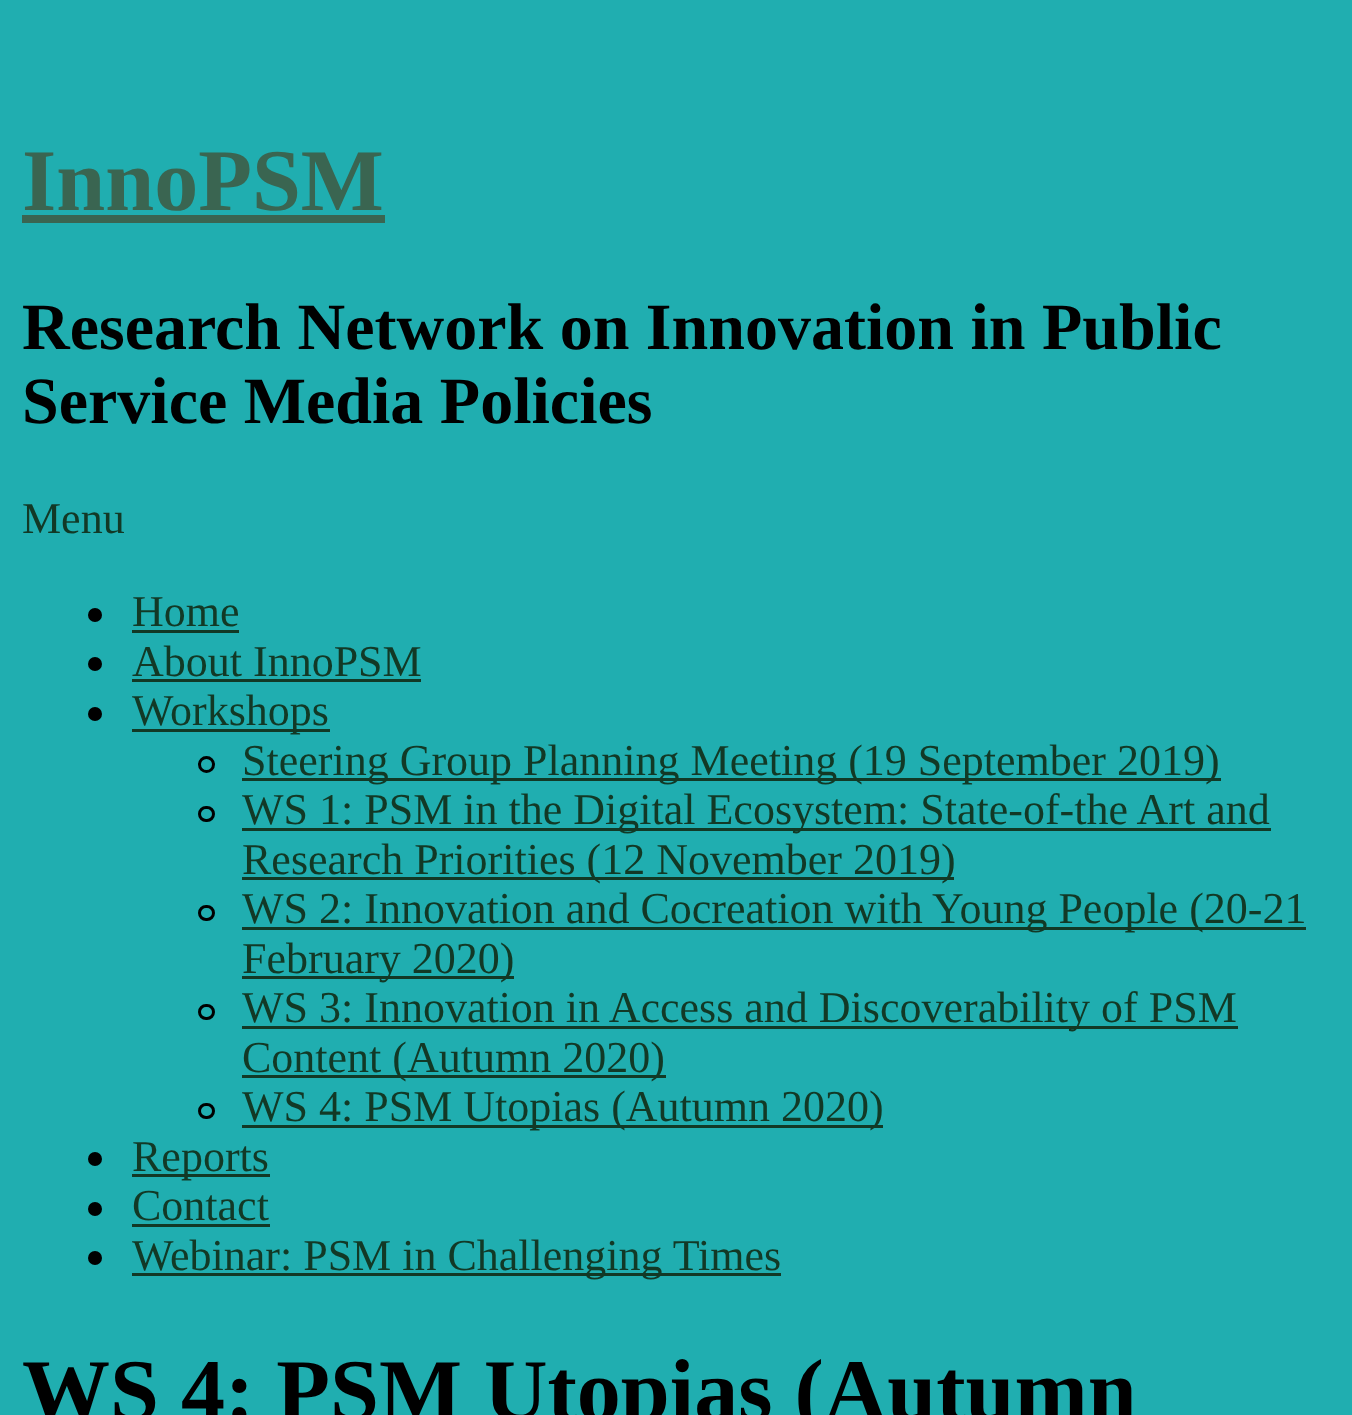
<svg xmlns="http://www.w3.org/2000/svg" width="1352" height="1415">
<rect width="100%" height="100%" fill="#20aeb0"/>
<text x="22" y="210" style="font-family:Liberation Serif;font-size:88px;font-weight:bold;fill:#3a6551">InnoPSM</text>
<rect x="22" y="215" width="363" height="8" fill="#3a6551"/>
<text x="22" y="349" style="font-family:Liberation Serif;font-size:66px;font-weight:bold;fill:#000">Research Network on Innovation in Public</text>
<text x="22" y="423" style="font-family:Liberation Serif;font-size:66px;font-weight:bold;fill:#000">Service Media Policies</text>
<text x="22" y="533" style="font-family:Liberation Serif;font-size:44px;fill:#123926">Menu</text>
<circle cx="95" cy="615" r="7" fill="#000"/>
<text x="132" y="626" style="font-family:Liberation Serif;font-size:44px;fill:#123926">Home</text>
<rect x="132" y="630" width="107" height="3" fill="#123926"/>
<circle cx="95" cy="664" r="7" fill="#000"/>
<text x="132" y="676" style="font-family:Liberation Serif;font-size:44px;fill:#123926">About InnoPSM</text>
<rect x="132" y="679" width="289" height="3" fill="#123926"/>
<circle cx="95" cy="714" r="7" fill="#000"/>
<rect x="132" y="729" width="198" height="3" fill="#123926"/>
<text x="132" y="725" style="font-family:Liberation Serif;font-size:44px;fill:#123926">Workshops</text>
<circle cx="206.5" cy="764.5" r="7" fill="none" stroke="#000" stroke-width="3"/>
<rect x="242" y="778" width="979" height="3" fill="#123926"/>
<text x="242" y="775" style="font-family:Liberation Serif;font-size:44px;fill:#123926">Steering Group Planning Meeting (19 September 2019)</text>
<rect x="199.5" y="807.5" width="14" height="13" rx="6.5" fill="none" stroke="#000" stroke-width="3"/>
<rect x="242" y="828" width="1029" height="3" fill="#123926"/>
<text x="242" y="824" style="font-family:Liberation Serif;font-size:44px;fill:#123926">WS 1: PSM in the Digital Ecosystem: State-of-the Art and</text>
<rect x="242" y="877" width="712" height="3" fill="#123926"/>
<text x="242" y="874" style="font-family:Liberation Serif;font-size:44px;fill:#123926">Research Priorities (12 November 2019)</text>
<rect x="199.5" y="906.5" width="14" height="13" rx="6.5" fill="none" stroke="#000" stroke-width="3"/>
<rect x="242" y="927" width="1064" height="3" fill="#123926"/>
<text x="242" y="923" style="font-family:Liberation Serif;font-size:44px;fill:#123926">WS 2: Innovation and Cocreation with Young People (20-21</text>
<rect x="242" y="976" width="272" height="3" fill="#123926"/>
<text x="242" y="973" style="font-family:Liberation Serif;font-size:44px;fill:#123926">February 2020)</text>
<rect x="199.5" y="1005.5" width="14" height="13" rx="6.5" fill="none" stroke="#000" stroke-width="3"/>
<rect x="242" y="1026" width="996" height="3" fill="#123926"/>
<text x="242" y="1022" style="font-family:Liberation Serif;font-size:44px;fill:#123926">WS 3: Innovation in Access and Discoverability of PSM</text>
<rect x="242" y="1075" width="424" height="3" fill="#123926"/>
<text x="242" y="1072" style="font-family:Liberation Serif;font-size:44px;fill:#123926">Content (Autumn 2020)</text>
<rect x="199.5" y="1104.5" width="14" height="13" rx="6.5" fill="none" stroke="#000" stroke-width="3"/>
<rect x="242" y="1125" width="641" height="3" fill="#123926"/>
<text x="242" y="1121" style="font-family:Liberation Serif;font-size:44px;fill:#123926">WS 4: PSM Utopias (Autumn 2020)</text>
<circle cx="95" cy="1159" r="7" fill="#000"/>
<rect x="132" y="1174" width="138" height="3" fill="#123926"/>
<text x="132" y="1171" style="font-family:Liberation Serif;font-size:44px;fill:#123926">Reports</text>
<circle cx="95" cy="1209" r="7" fill="#000"/>
<text x="132" y="1220" style="font-family:Liberation Serif;font-size:44px;fill:#123926">Contact</text>
<rect x="132" y="1224" width="138" height="3" fill="#123926"/>
<circle cx="95" cy="1258" r="7" fill="#000"/>
<rect x="132" y="1273" width="649" height="3" fill="#123926"/>
<text x="132" y="1270" style="font-family:Liberation Serif;font-size:44px;fill:#123926">Webinar: PSM in Challenging Times</text>
<text x="22" y="1420" style="font-family:Liberation Serif;font-size:88px;font-weight:bold;fill:#000">WS 4: PSM Utopias (Autumn</text>
</svg>
